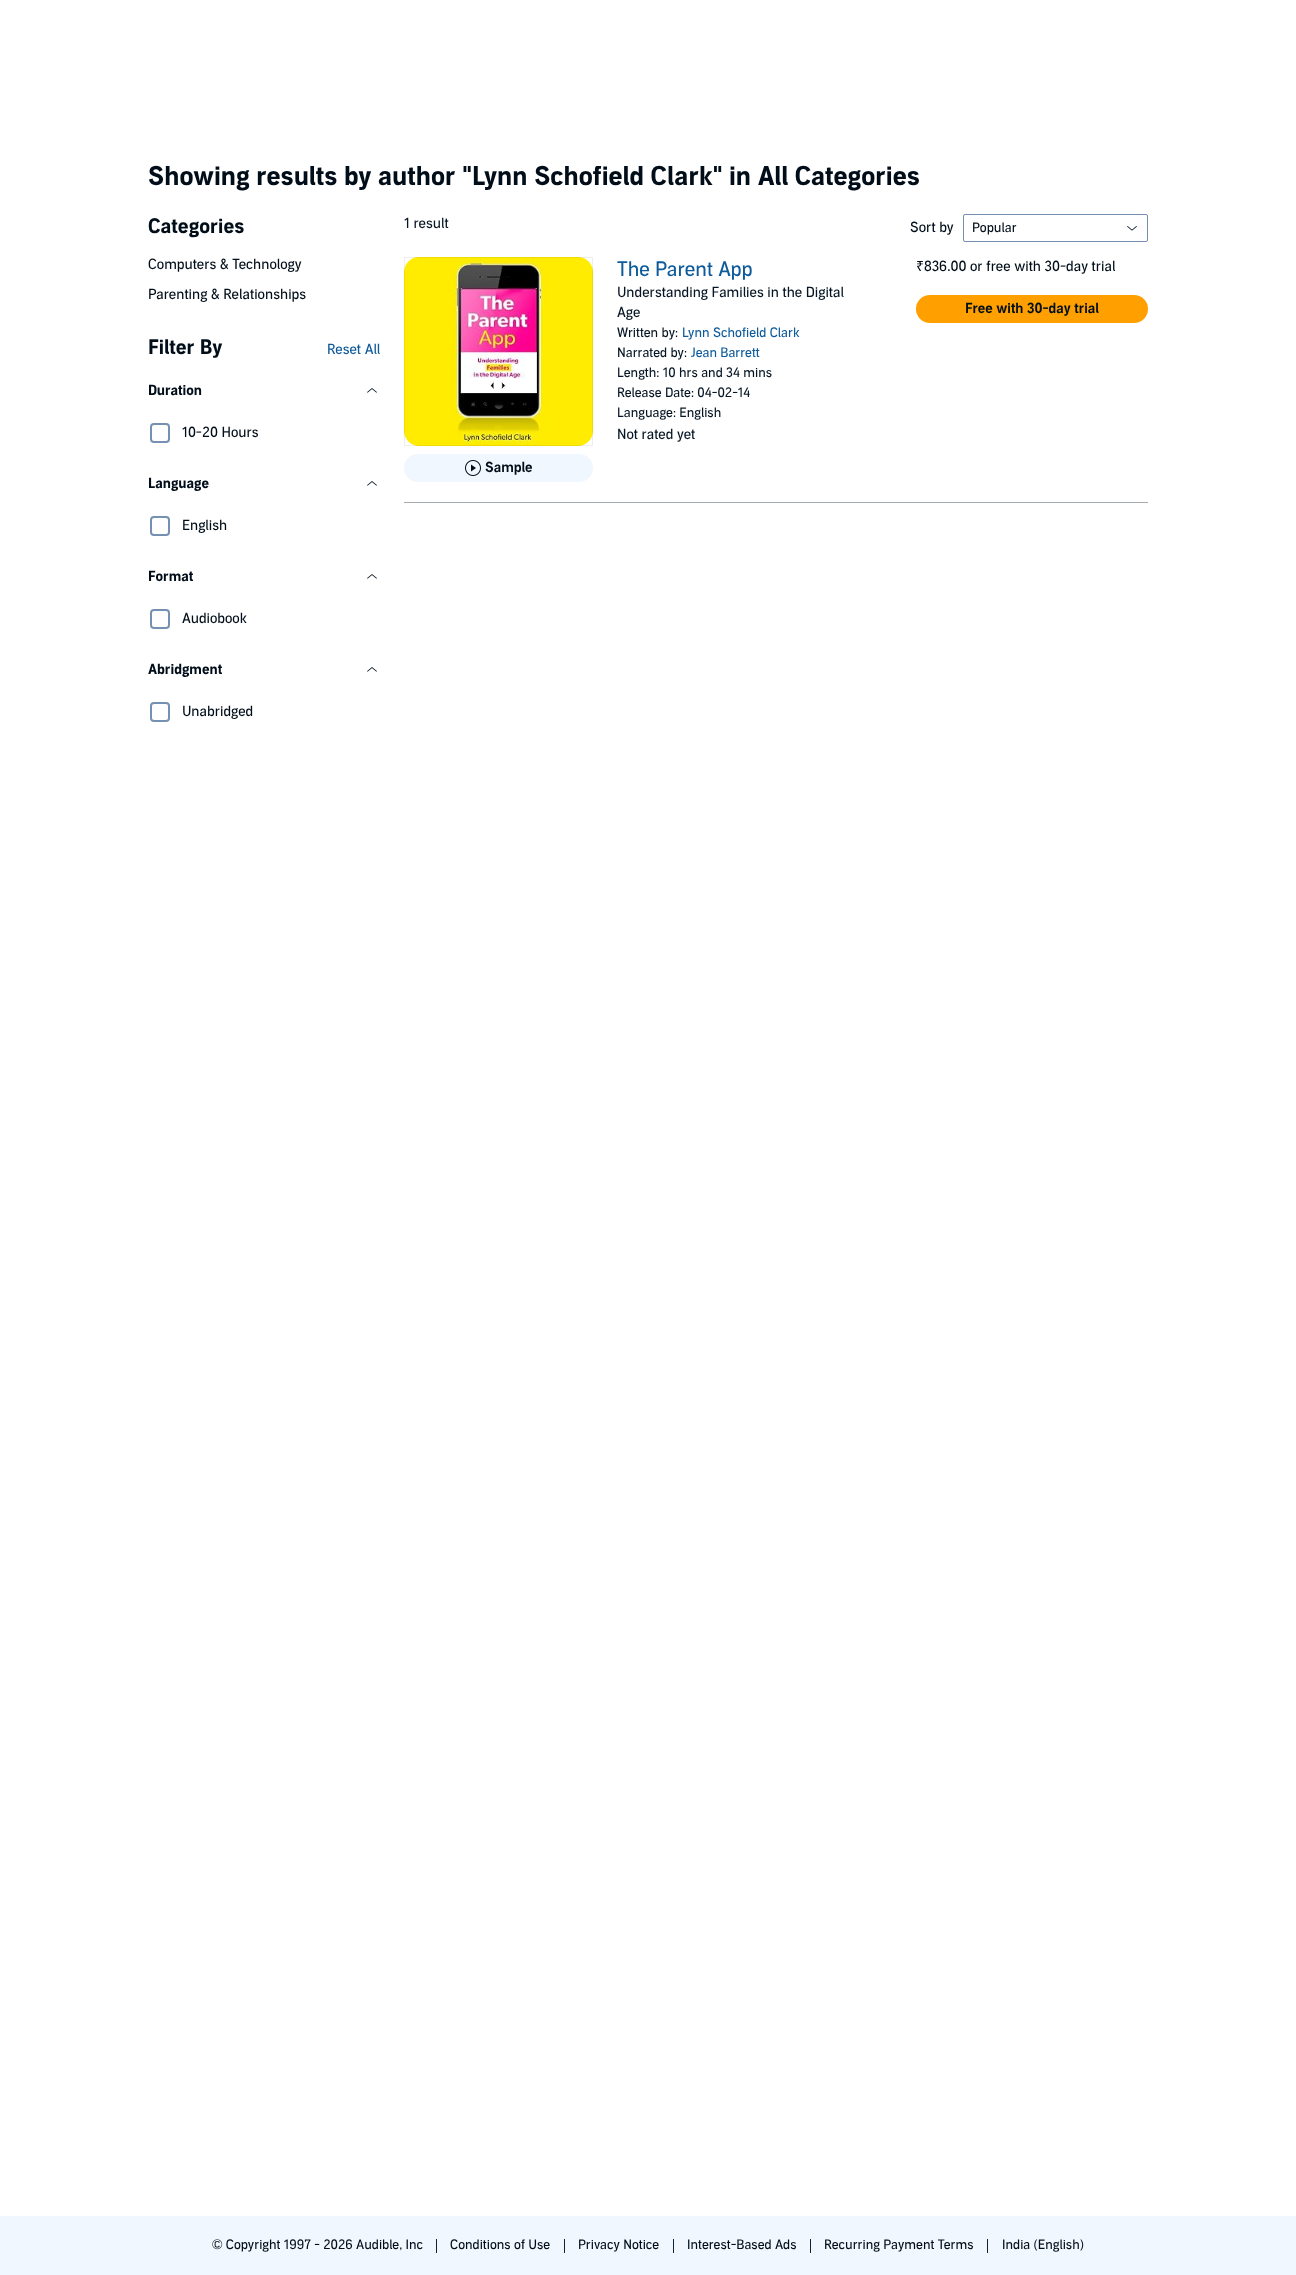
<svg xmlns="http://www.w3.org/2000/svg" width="1296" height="2275">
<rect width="100%" height="100%" fill="#fff"/>
<text x="148" y="185" style="font-family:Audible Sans;font-size:26px;font-weight:bold;fill:#010e19">Showing results by author "Lynn Schofield Clark" in All Categories</text>
<text x="148" y="233" style="font-family:Audible Sans;font-size:20px;font-weight:bold;fill:#010e19">Categories</text>
<text x="148" y="269" style="font-family:Audible Sans;font-size:14px;fill:#010e19">Computers &amp; Technology</text>
<text x="148" y="299" style="font-family:Audible Sans;font-size:14px;fill:#010e19">Parenting &amp; Relationships</text>
<text x="148" y="354" style="font-family:Audible Sans;font-size:20px;font-weight:bold;fill:#010e19">Filter By</text>
<text x="327" y="354" style="font-family:Audible Sans;font-size:14px;fill:#0e5b9b">Reset All</text>
<text x="148" y="395" style="font-family:Audible Sans;font-size:14px;font-weight:bold;fill:#010e19">Duration</text>
<image x="367" y="388" width="10" height="5" href="media/1.png"/>
<rect x="151" y="424" width="18" height="18" rx="3" fill="none" stroke="#7690b2" stroke-width="2"/>
<text x="182" y="437" style="font-family:Audible Sans;font-size:14px;fill:#010e19">10-20 Hours</text>
<text x="148" y="488" style="font-family:Audible Sans;font-size:14px;font-weight:bold;fill:#010e19">Language</text>
<image x="367" y="481" width="10" height="5" href="media/1.png"/>
<rect x="151" y="517" width="18" height="18" rx="3" fill="none" stroke="#7690b2" stroke-width="2"/>
<text x="182" y="530" style="font-family:Audible Sans;font-size:14px;fill:#010e19">English</text>
<text x="148" y="581" style="font-family:Audible Sans;font-size:14px;font-weight:bold;fill:#010e19">Format</text>
<image x="367" y="574" width="10" height="5" href="media/1.png"/>
<rect x="151" y="610" width="18" height="18" rx="3" fill="none" stroke="#7690b2" stroke-width="2"/>
<text x="182" y="623" style="font-family:Audible Sans;font-size:14px;fill:#010e19">Audiobook</text>
<text x="148" y="674" style="font-family:Audible Sans;font-size:14px;font-weight:bold;fill:#010e19">Abridgment</text>
<image x="367" y="667" width="10" height="5" href="media/1.png"/>
<rect x="151" y="703" width="18" height="18" rx="3" fill="none" stroke="#7690b2" stroke-width="2"/>
<text x="182" y="716" style="font-family:Audible Sans;font-size:14px;fill:#010e19">Unabridged</text>
<text x="404" y="228" style="font-family:Audible Sans;font-size:14px;fill:#061624">1 result</text>
<text x="910" y="232" style="font-family:Audible Sans;font-size:14px;fill:#010e19">Sort by</text>
<rect x="963.5" y="214.5" width="184" height="27" rx="1.5" fill="none" stroke="#7690b2"/>
<text x="972" y="232" style="font-family:Audible Sans;font-size:13px;fill:#010e19">Popular</text>
<image x="1127" y="226" width="10" height="5" href="media/2.png"/>
<text x="617" y="276" style="font-family:Audible Sans;font-size:20px;fill:#0e5b9b">The Parent App</text>
<text x="617" y="297" style="font-family:Audible Sans;font-size:14px;fill:#061624">Understanding Families in the Digital</text>
<text x="617" y="317" style="font-family:Audible Sans;font-size:14px;fill:#061624">Age</text>
<text x="617" y="337" style="font-family:Audible Sans;font-size:13px;fill:#061624">Written by:</text>
<text x="682" y="337" style="font-family:Audible Sans;font-size:13px;fill:#0e5b9b">Lynn Schofield Clark</text>
<text x="617" y="357" style="font-family:Audible Sans;font-size:13px;fill:#061624">Narrated by:</text>
<text x="691" y="357" style="font-family:Audible Sans;font-size:13px;fill:#0e5b9b">Jean Barrett</text>
<text x="617" y="377" style="font-family:Audible Sans;font-size:13px;fill:#061624">Length: 10 hrs and 34 mins</text>
<text x="617" y="397" style="font-family:Audible Sans;font-size:13px;fill:#061624">Release Date: 04-02-14</text>
<text x="617" y="417" style="font-family:Audible Sans;font-size:13px;fill:#061624">Language: English</text>
<text x="617" y="439" style="font-family:Audible Sans;font-size:14px;fill:#061624">Not rated yet</text>
<image x="404" y="257" width="189" height="189" href="media/3.png"/>
<rect x="404.5" y="257.5" width="188" height="188" fill="none" stroke="#21232514"/>
<rect x="404" y="454" width="189" height="28" rx="14" fill="#f1f7fe"/>
<image x="465" y="460" width="16" height="16" href="media/4.png"/>
<text x="485" y="472" style="font-family:Audible Sans;font-size:14px;font-weight:600;fill:#010e19">Sample</text>
<text x="916" y="271" style="font-family:Noto Sans;font-size:14px;fill:#010e19">₹</text>
<text x="924" y="271" style="font-family:Audible Sans;font-size:14px;fill:#010e19">836.00 or free with 30-day trial</text>
<rect x="916" y="295" width="232" height="28" rx="14" fill="#ffa000"/>
<text x="965" y="313" style="font-family:Audible Sans;font-size:14px;font-weight:600;fill:#010e19">Free with 30-day trial</text>
<rect x="404" y="502" width="744" height="1" fill="#a6abaf"/>
<rect y="2216" width="1296" height="59" fill="#f1f7fe"/>
<text x="212" y="2249" style="font-family:Audible Sans;font-size:13px;fill:#010e19">© Copyright 1997 - 2026 Audible, Inc</text>
<rect x="436" y="2239" width="1" height="14" fill="#112235"/>
<text x="450" y="2249" style="font-family:Audible Sans;font-size:13px;fill:#010e19">Conditions of Use</text>
<rect x="564" y="2239" width="1" height="14" fill="#112235"/>
<text x="578" y="2249" style="font-family:Audible Sans;font-size:13px;fill:#010e19">Privacy Notice</text>
<rect x="673" y="2239" width="1" height="14" fill="#112235"/>
<text x="687" y="2249" style="font-family:Audible Sans;font-size:13px;fill:#010e19">Interest-Based Ads</text>
<rect x="810" y="2239" width="1" height="14" fill="#112235"/>
<text x="824" y="2249" style="font-family:Audible Sans;font-size:13px;fill:#010e19">Recurring Payment Terms</text>
<rect x="987" y="2239" width="1" height="14" fill="#112235"/>
<text x="1002" y="2249" style="font-family:Audible Sans;font-size:13px;fill:#010e19">India (English)</text>
</svg>
